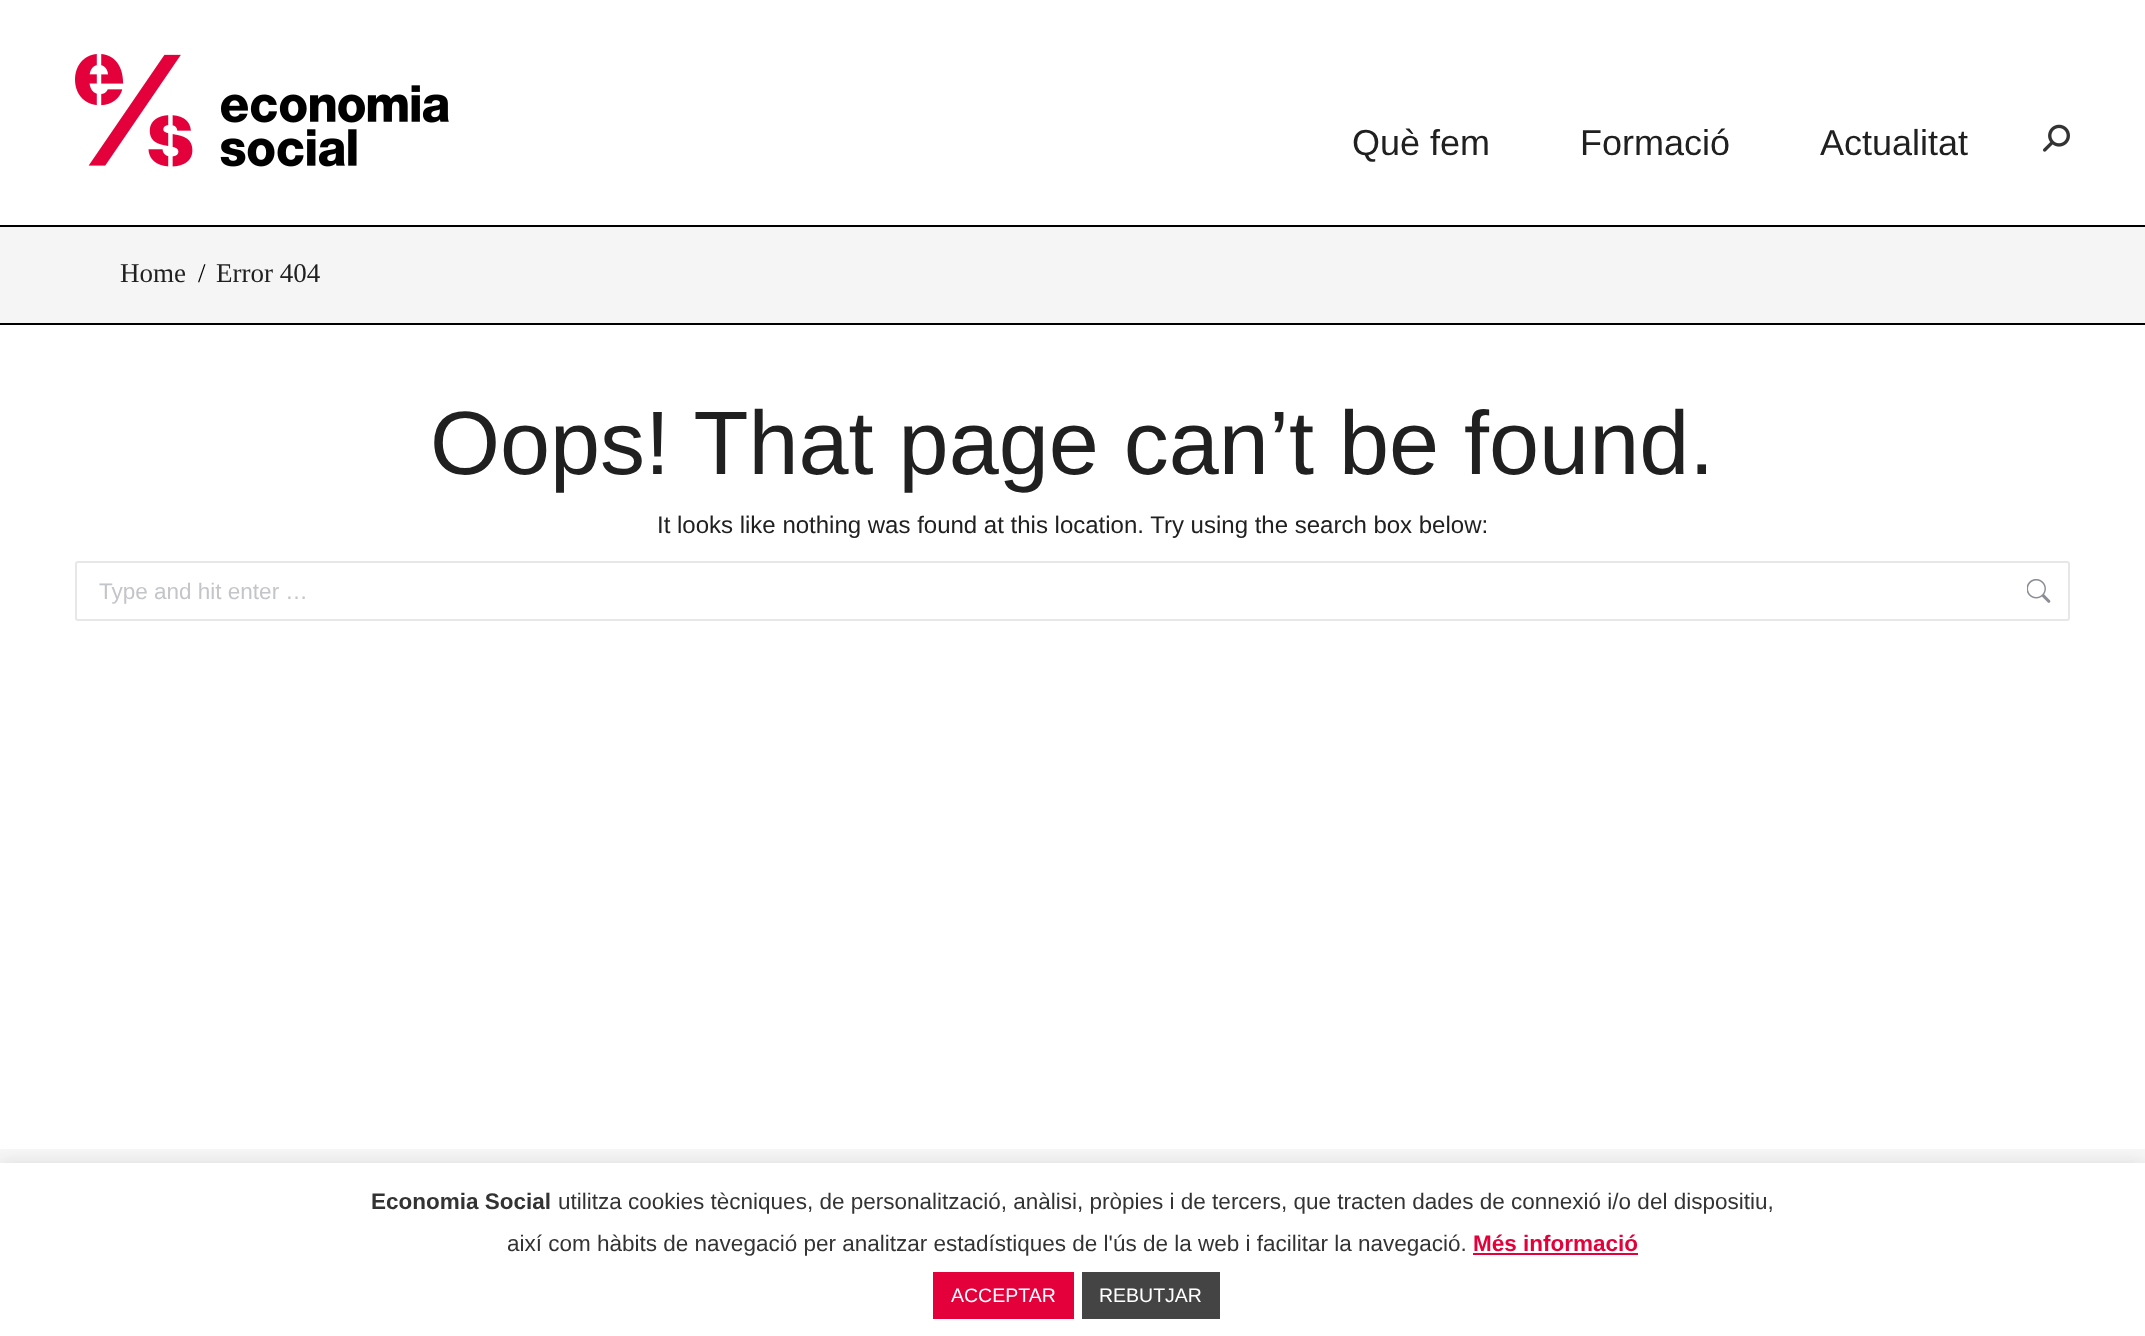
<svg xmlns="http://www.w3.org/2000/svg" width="2145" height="1336">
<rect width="100%" height="100%" fill="#f7f7f7"/>
<rect width="2145" height="1149" fill="#fff"/>
<image x="75" y="54" width="374" height="113" href="media/1.png"/>
<text x="1352" y="155" style="font-family:Liberation Sans;font-size:36px;fill:#202020">Què fem</text>
<text x="1580" y="155" style="font-family:Liberation Sans;font-size:36px;fill:#202020">Formació</text>
<text x="1820" y="155" style="font-family:Liberation Sans;font-size:36px;fill:#202020">Actualitat</text>
<image x="2043" y="124" width="27" height="28" href="media/2.png"/>
<rect y="227" width="2145" height="96" fill="#f5f5f5"/>
<rect y="225" width="2145" height="2" fill="#000"/>
<rect y="323" width="2145" height="2" fill="#000"/>
<text x="120" y="282" style="font-family:Liberation Serif;font-size:27px;fill:#202020">Home</text>
<text x="198" y="282" style="font-family:Liberation Serif;font-size:27px;fill:#000">/</text>
<text x="216" y="282" style="font-family:Liberation Serif;font-size:27px;fill:#202020">Error 404</text>
<text x="430" y="474" style="font-family:Liberation Sans;font-size:90px;fill:#202020">Oops! That page can’t be found.</text>
<text x="657" y="533" style="font-family:Liberation Sans;font-size:24px;fill:#202020">It looks like nothing was found at this location. Try using the search box below:</text>
<rect x="76" y="562" width="1993" height="58" rx="2" fill="none" stroke="#e7e7e7" stroke-width="2"/>
<text x="99" y="599" style="font-family:Liberation Sans;font-size:22.5px;fill:#c4c5c9">Type and hit enter …</text>
<image x="2027" y="579" width="24" height="24" href="media/3.png"/>
<rect y="1161" width="2145" height="174" fill="#acabab4d" filter="blur(7.5px)"/>
<rect y="1163" width="2145" height="173" fill="#fff"/>
<text x="371" y="1209" style="font-family:Liberation Sans;font-size:22.5px;font-weight:bold;fill:#333">Economia Social</text>
<text x="558" y="1209" style="font-family:Liberation Sans;font-size:22.5px;fill:#333">utilitza cookies tècniques, de personalització, anàlisi, pròpies i de tercers, que tracten dades de connexió i/o del dispositiu,</text>
<text x="507" y="1251" style="font-family:Liberation Sans;font-size:22.5px;fill:#333">així com hàbits de navegació per analitzar estadístiques de l'ús de la web i facilitar la navegació.</text>
<text x="1473" y="1251" style="font-family:Liberation Sans;font-size:22.5px;font-weight:bold;fill:#e4003b">Més informació</text>
<rect x="1473" y="1253" width="165" height="2" fill="#e4003b"/>
<rect x="933" y="1272" width="141" height="47" fill="#e4003b"/>
<text x="951" y="1302" style="font-family:Liberation Sans;font-size:19.5px;fill:#fff">ACCEPTAR</text>
<rect x="1082" y="1272" width="138" height="47" fill="#444"/>
<text x="1099" y="1302" style="font-family:Liberation Sans;font-size:19.5px;fill:#fff">REBUTJAR</text>
</svg>
